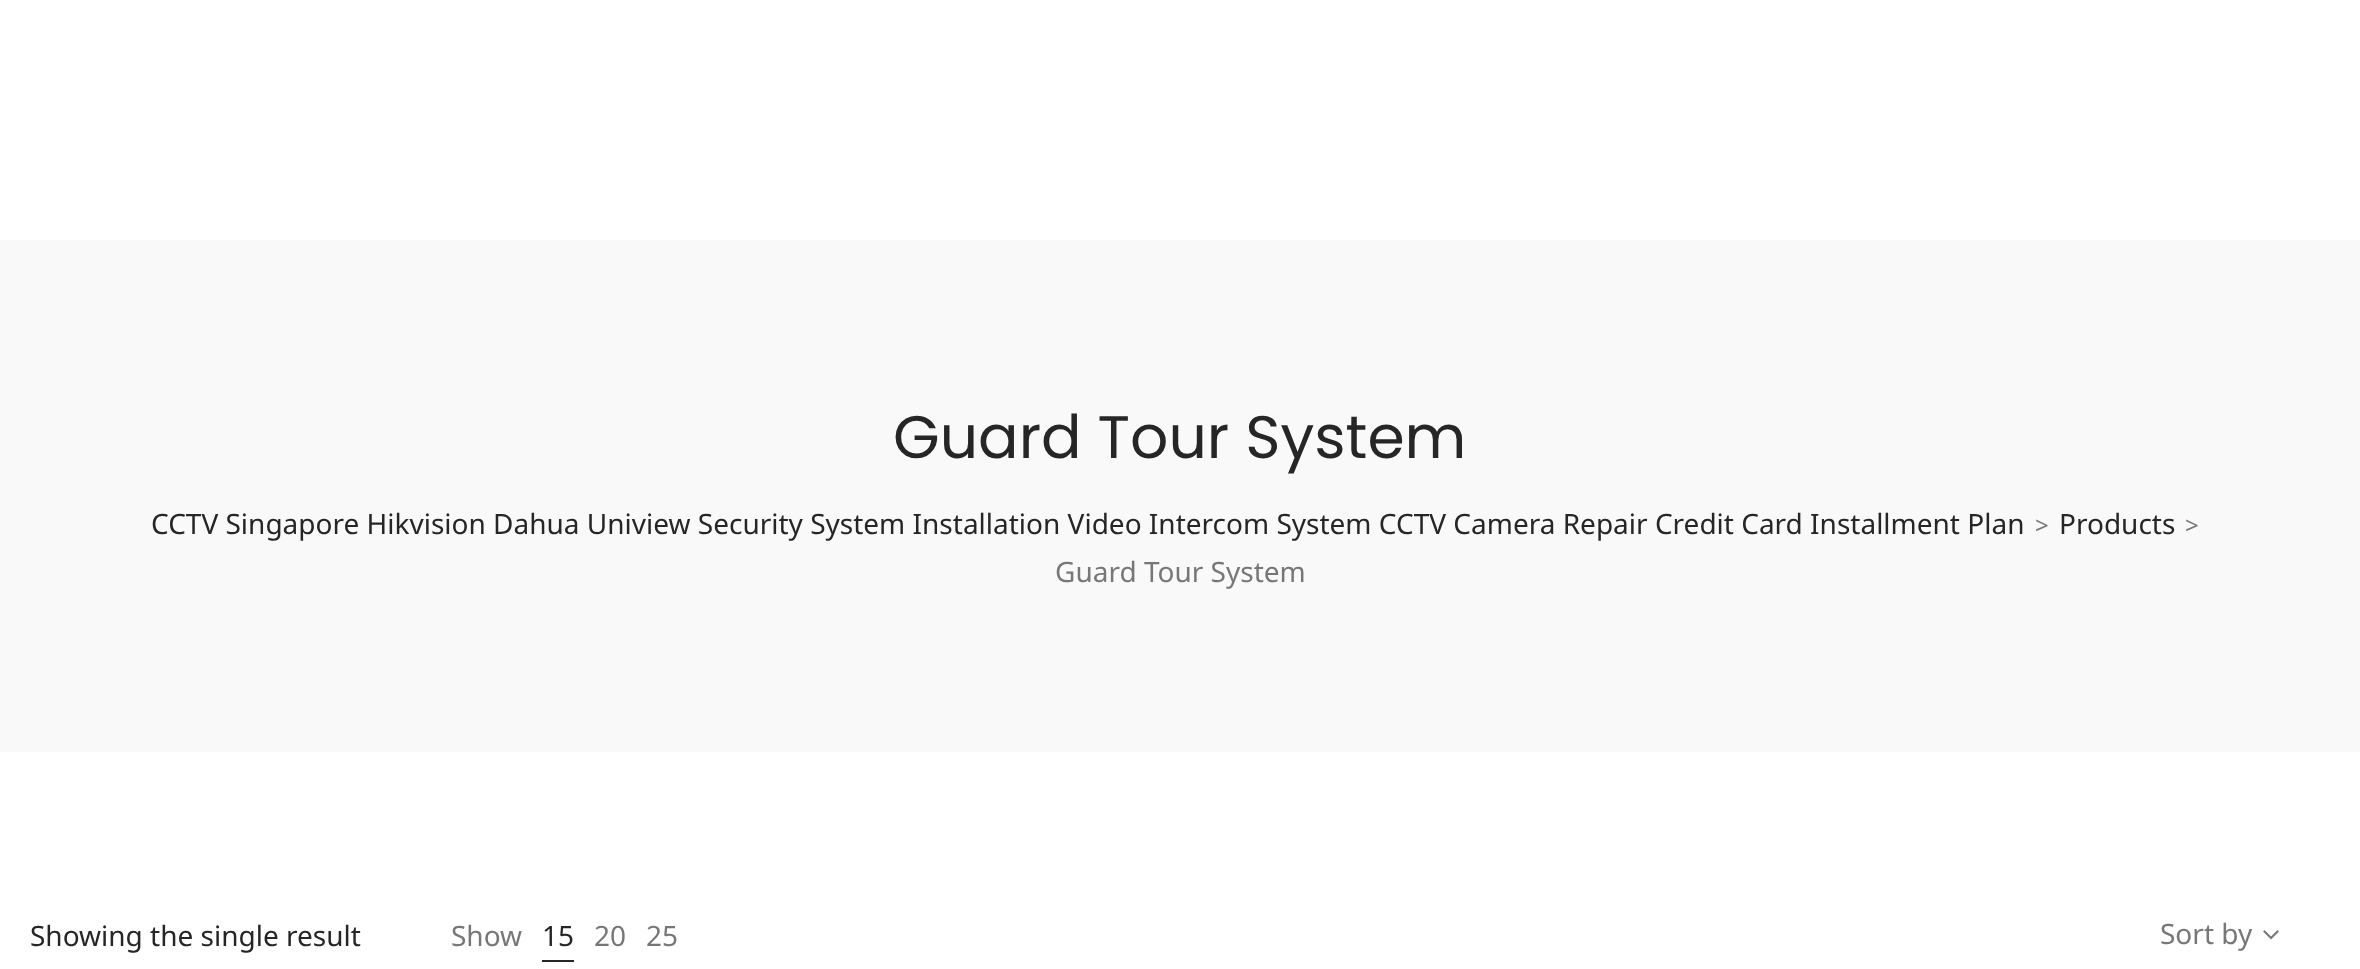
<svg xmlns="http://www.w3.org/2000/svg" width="2360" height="969">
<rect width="100%" height="100%" fill="#fff"/>
<rect y="240" width="2360" height="512" fill="#f9f9f9"/>
<text x="893" y="458" style="font-family:Poppins;font-size:60px;fill:#262626">Guard Tour System</text>
<text x="151" y="534" style="font-family:Noto Sans;font-size:28px;fill:#262626">CCTV Singapore Hikvision Dahua Uniview Security System Installation Video Intercom System CCTV Camera Repair Credit Card Installment Plan</text>
<text x="2035" y="534" style="font-family:Noto Sans;font-size:24px;fill:#777">&gt;</text>
<text x="2059" y="534" style="font-family:Noto Sans;font-size:28px;fill:#262626">Products</text>
<text x="2185" y="534" style="font-family:Noto Sans;font-size:24px;fill:#777">&gt;</text>
<text x="1055" y="582" style="font-family:Noto Sans;font-size:28px;fill:#777">Guard Tour System</text>
<text x="30" y="946" style="font-family:Noto Sans;font-size:28px;fill:#262626">Showing the single result</text>
<text x="451" y="946" style="font-family:Noto Sans;font-size:28px;fill:#777">Show</text>
<rect x="542" y="960" width="32" height="2" fill="#262626"/>
<text x="542" y="946" style="font-family:Noto Sans;font-size:28px;fill:#262626">15</text>
<text x="594" y="946" style="font-family:Noto Sans;font-size:28px;fill:#777">20</text>
<text x="646" y="946" style="font-family:Noto Sans;font-size:28px;fill:#777">25</text>
<text x="2160" y="944" style="font-family:Noto Sans;font-size:28px;fill:#777">Sort by</text>
<image x="2263" y="930" width="16" height="10" href="media/1.png"/>
</svg>
